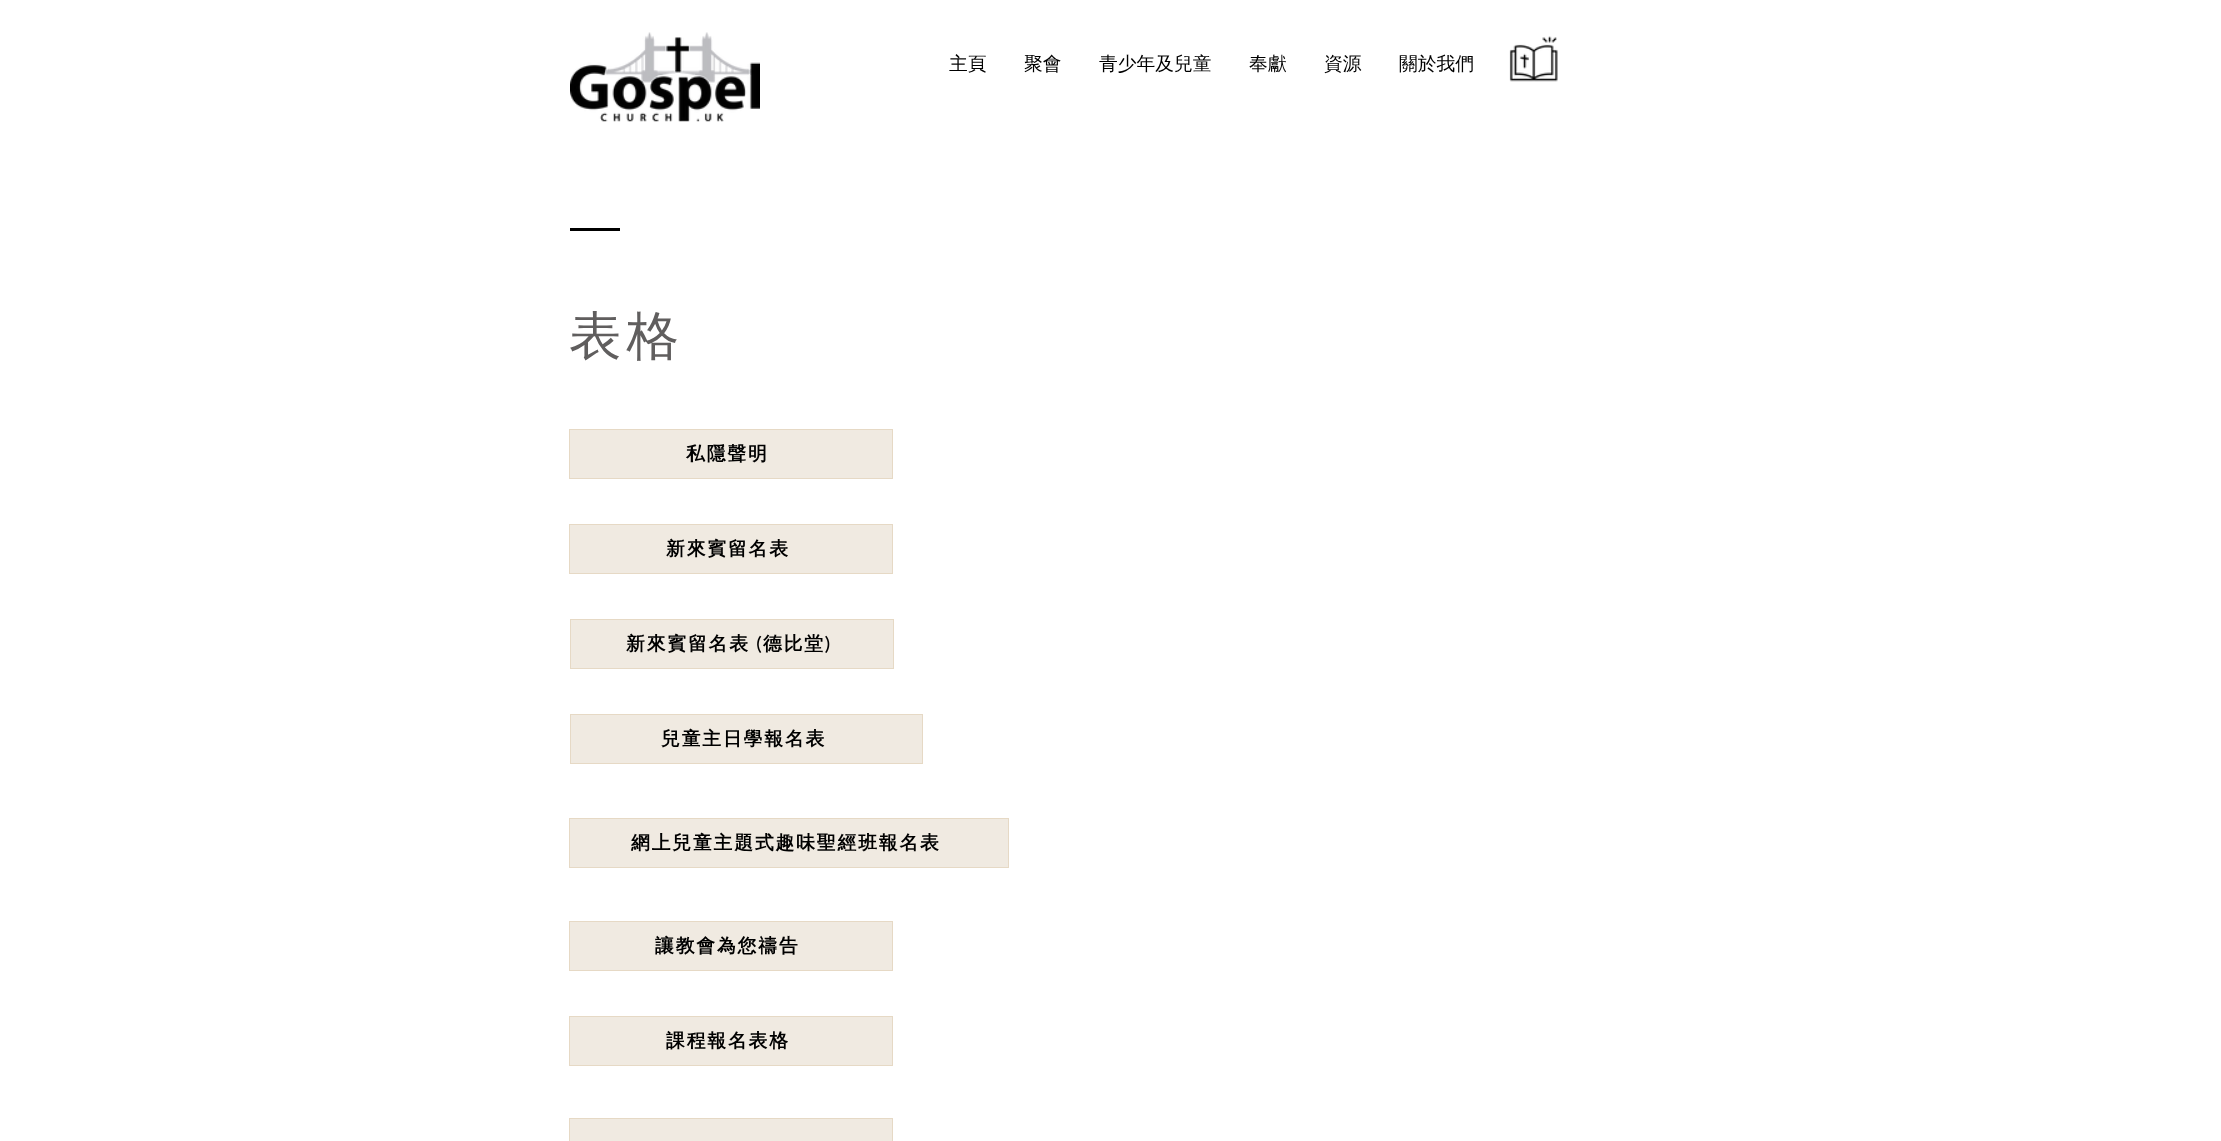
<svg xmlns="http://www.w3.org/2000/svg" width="2221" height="1141">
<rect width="100%" height="100%" fill="#fff"/>
<image x="570" y="32" width="190" height="90" href="media/1.png"/>
<text x="949" y="70" style="font-family:WenQuanYi Zen Hei;font-size:18.75px;font-weight:500;fill:#000">主頁</text>
<text x="1024" y="70" style="font-family:WenQuanYi Zen Hei;font-size:18.75px;font-weight:500;fill:#000">聚會</text>
<text x="1099" y="70" style="font-family:WenQuanYi Zen Hei;font-size:18.75px;font-weight:500;fill:#000">青少年及兒童</text>
<text x="1249" y="70" style="font-family:WenQuanYi Zen Hei;font-size:18.75px;font-weight:500;fill:#000">奉獻</text>
<text x="1324" y="70" style="font-family:WenQuanYi Zen Hei;font-size:18.75px;font-weight:500;fill:#000">資源</text>
<text x="1399" y="70" style="font-family:WenQuanYi Zen Hei;font-size:18.75px;font-weight:500;fill:#000">關於我們</text>
<image x="1509" y="36" width="49" height="46" href="media/2.png"/>
<rect x="570" y="228" width="50" height="3" fill="#000"/>
<text x="569" y="354" style="font-family:WenQuanYi Zen Hei;font-size:52.5px;font-weight:500;letter-spacing:5px;fill:#605e5e">表格</text>
<rect x="569.5" y="429.5" width="323" height="49" fill="#f0eae1" stroke="#e6d9c5"/>
<text x="686" y="460" style="font-family:WenQuanYi Zen Hei;font-size:18.75px;font-weight:bold;letter-spacing:1.9px;fill:#000">私隱聲明</text>
<rect x="569.5" y="524.5" width="323" height="49" fill="#f0eae1" stroke="#e6d9c5"/>
<text x="666" y="555" style="font-family:WenQuanYi Zen Hei;font-size:18.75px;font-weight:bold;letter-spacing:1.9px;fill:#000">新來賓留名表</text>
<rect x="570.5" y="619.5" width="323" height="49" fill="#f0eae1" stroke="#e6d9c5"/>
<text x="626" y="650" style="font-family:WenQuanYi Zen Hei;font-size:18.75px;font-weight:bold;letter-spacing:1.9px;fill:#000">新來賓留名表</text>
<text x="756" y="650" style="font-family:'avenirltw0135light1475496';font-size:18.75px;font-weight:bold;letter-spacing:1.9px;fill:#000">(</text>
<text x="763" y="650" style="font-family:WenQuanYi Zen Hei;font-size:18.75px;font-weight:bold;letter-spacing:1.9px;fill:#000">德比堂</text>
<text x="825" y="650" style="font-family:'avenirltw0135light1475496';font-size:18.75px;font-weight:bold;letter-spacing:1.9px;fill:#000">)</text>
<rect x="570.5" y="714.5" width="352" height="49" fill="#f0eae1" stroke="#e6d9c5"/>
<text x="661" y="745" style="font-family:WenQuanYi Zen Hei;font-size:18.75px;font-weight:bold;letter-spacing:1.9px;fill:#000">兒童主日學報名表</text>
<rect x="569.5" y="818.5" width="439" height="49" fill="#f0eae1" stroke="#e6d9c5"/>
<text x="631" y="849" style="font-family:WenQuanYi Zen Hei;font-size:18.75px;font-weight:bold;letter-spacing:1.9px;fill:#000">網上兒童主題式趣味聖經班報名表</text>
<rect x="569.5" y="921.5" width="323" height="49" fill="#f0eae1" stroke="#e6d9c5"/>
<text x="655" y="952" style="font-family:WenQuanYi Zen Hei;font-size:18.75px;font-weight:bold;letter-spacing:1.9px;fill:#000">讓教會為您禱告</text>
<rect x="569.5" y="1016.5" width="323" height="49" fill="#f0eae1" stroke="#e6d9c5"/>
<text x="666" y="1047" style="font-family:WenQuanYi Zen Hei;font-size:18.75px;font-weight:bold;letter-spacing:1.9px;fill:#000">課程報名表格</text>
<rect x="569.5" y="1118.5" width="323" height="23" fill="#f0eae1" stroke="#e6d9c5"/>
</svg>
